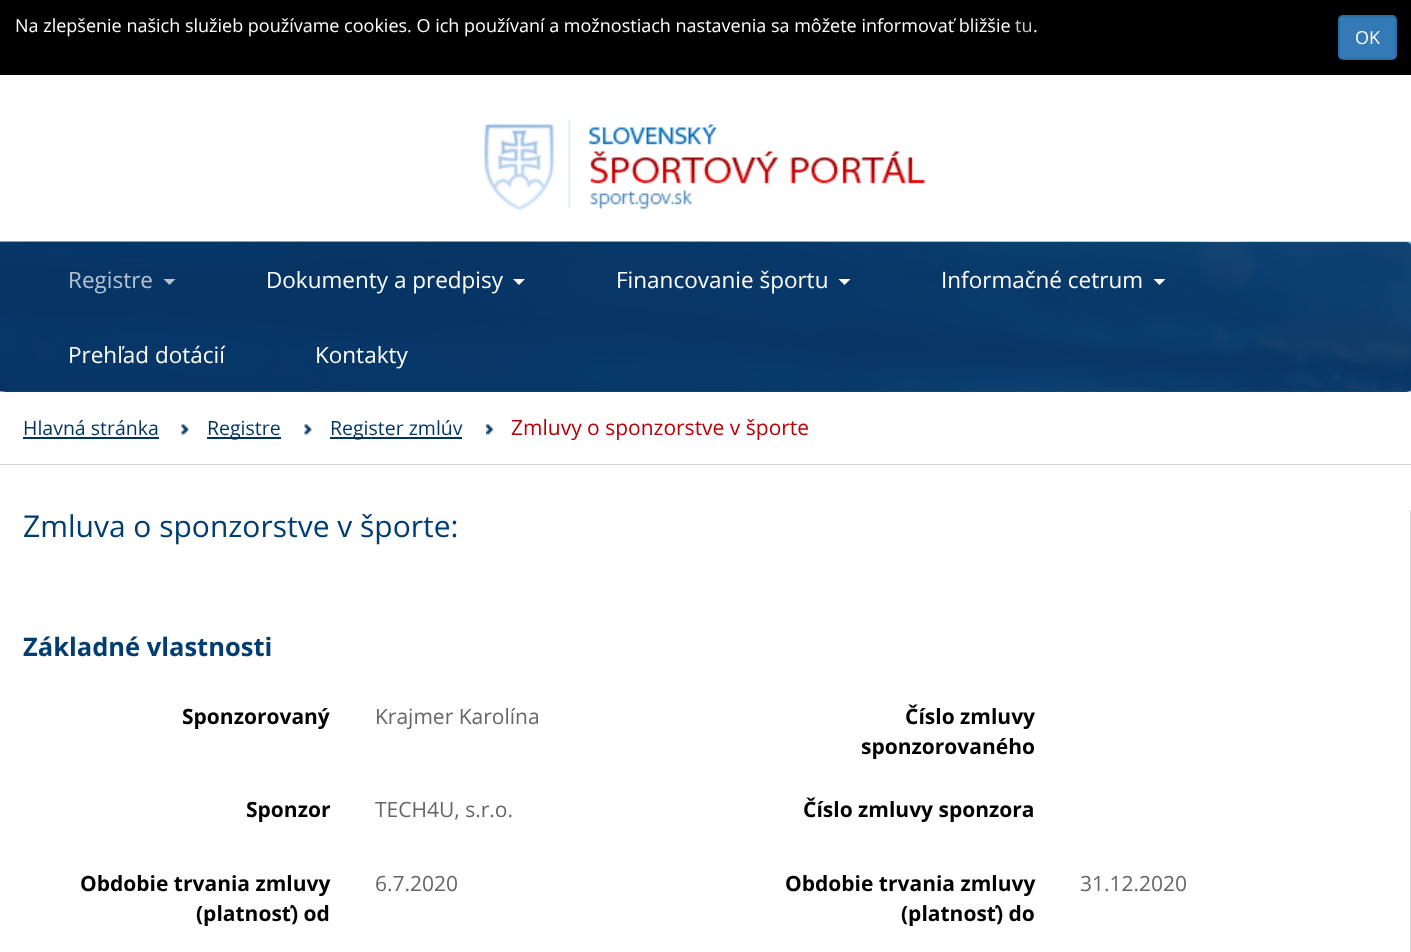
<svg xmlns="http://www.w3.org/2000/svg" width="1411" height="952">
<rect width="100%" height="100%" fill="#fff"/>
<rect width="1411" height="75" fill="#000"/>
<text x="15" y="32" style="font-family:Open Sans;font-size:18px;fill:#fff">Na zlepšenie našich služieb používame cookies. O ich používaní a možnostiach nastavenia sa môžete informovať bližšie</text>
<text x="1015" y="32" style="font-family:Open Sans;font-size:18px;fill:#ccc">tu</text>
<text x="1033" y="32" style="font-family:Open Sans;font-size:18px;fill:#fff">.</text>
<rect x="1339" y="16" width="57" height="43" rx="4" fill="#337ab7" stroke="#2e6da4" stroke-width="2"/>
<text x="1355" y="44" style="font-family:Open Sans;font-size:18px;fill:#fff">OK</text>
<image x="484" y="120" width="442" height="91" href="media/1.png"/>
<image x="0" y="241" width="1411" height="151" href="media/2.png"/>
<rect y="242" width="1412" height="150" rx="6" fill="#073565e6"/>
<text x="68" y="288" style="font-family:Open Sans;font-size:22.5px;fill:#b5c2d1">Registre</text>
<path d="M163.5 279h12l-6 6z" fill="#b5c2d1"/>
<text x="266" y="288" style="font-family:Open Sans;font-size:22.5px;fill:#fff">Dokumenty a predpisy</text>
<path d="M513 279h12l-6 6z" fill="#fff"/>
<text x="616" y="288" style="font-family:Open Sans;font-size:22.5px;fill:#fff">Financovanie športu</text>
<path d="M838.5 279h12l-6 6z" fill="#fff"/>
<text x="941" y="288" style="font-family:Open Sans;font-size:22.5px;fill:#fff">Informačné cetrum</text>
<path d="M1153.5 279h12l-6 6z" fill="#fff"/>
<text x="68" y="363" style="font-family:Open Sans;font-size:22.5px;fill:#fff">Prehľad dotácií</text>
<text x="315" y="363" style="font-family:Open Sans;font-size:22.5px;fill:#fff">Kontakty</text>
<rect y="464" width="1411" height="1" fill="#d3d3d3"/>
<text x="23" y="435" style="font-family:Open Sans;font-size:19.5px;fill:#01335f">Hlavná stránka</text>
<rect x="23" y="437" width="136" height="2" fill="#01335f"/>
<image x="181" y="424" width="8" height="11" href="media/3.png"/>
<rect x="207" y="437" width="74" height="2" fill="#01335f"/>
<text x="207" y="435" style="font-family:Open Sans;font-size:19.5px;fill:#01335f">Registre</text>
<image x="304" y="424" width="8" height="11" href="media/3.png"/>
<rect x="330" y="437" width="132" height="2" fill="#01335f"/>
<text x="330" y="435" style="font-family:Open Sans;font-size:19.5px;fill:#01335f">Register zmlúv</text>
<image x="486" y="424" width="8" height="11" href="media/4.png"/>
<text x="511" y="435" style="font-family:Open Sans;font-size:21px;fill:#b80007">Zmluvy o sponzorstve v športe</text>
<rect x="1410" y="510" width="1" height="442" fill="#d3d3d3"/>
<text x="23" y="537" style="font-family:Open Sans;font-size:30px;fill:#003d73">Zmluva o sponzorstve v športe:</text>
<text x="23" y="656" style="font-family:Open Sans;font-size:25.5px;font-weight:bold;fill:#003d73">Základné vlastnosti</text>
<text x="182" y="724" style="font-family:Open Sans;font-size:21px;font-weight:bold;fill:#000">Sponzorovaný</text>
<text x="375" y="724" style="font-family:Open Sans;font-size:21px;fill:#666">Krajmer Karolína</text>
<text x="905" y="724" style="font-family:Open Sans;font-size:21px;font-weight:bold;fill:#000">Číslo zmluvy</text>
<text x="861" y="754" style="font-family:Open Sans;font-size:21px;font-weight:bold;fill:#000">sponzorovaného</text>
<text x="246" y="817" style="font-family:Open Sans;font-size:21px;font-weight:bold;fill:#000">Sponzor</text>
<text x="375" y="817" style="font-family:Open Sans;font-size:21px;fill:#666">TECH4U, s.r.o.</text>
<text x="803" y="817" style="font-family:Open Sans;font-size:21px;font-weight:bold;fill:#000">Číslo zmluvy sponzora</text>
<text x="80" y="891" style="font-family:Open Sans;font-size:21px;font-weight:bold;fill:#000">Obdobie trvania zmluvy</text>
<text x="196" y="921" style="font-family:Open Sans;font-size:21px;font-weight:bold;fill:#000">(platnosť) od</text>
<text x="375" y="891" style="font-family:Open Sans;font-size:21px;fill:#666">6.7.2020</text>
<text x="785" y="891" style="font-family:Open Sans;font-size:21px;font-weight:bold;fill:#000">Obdobie trvania zmluvy</text>
<text x="901" y="921" style="font-family:Open Sans;font-size:21px;font-weight:bold;fill:#000">(platnosť) do</text>
<text x="1080" y="891" style="font-family:Open Sans;font-size:21px;fill:#666">31.12.2020</text>
</svg>
